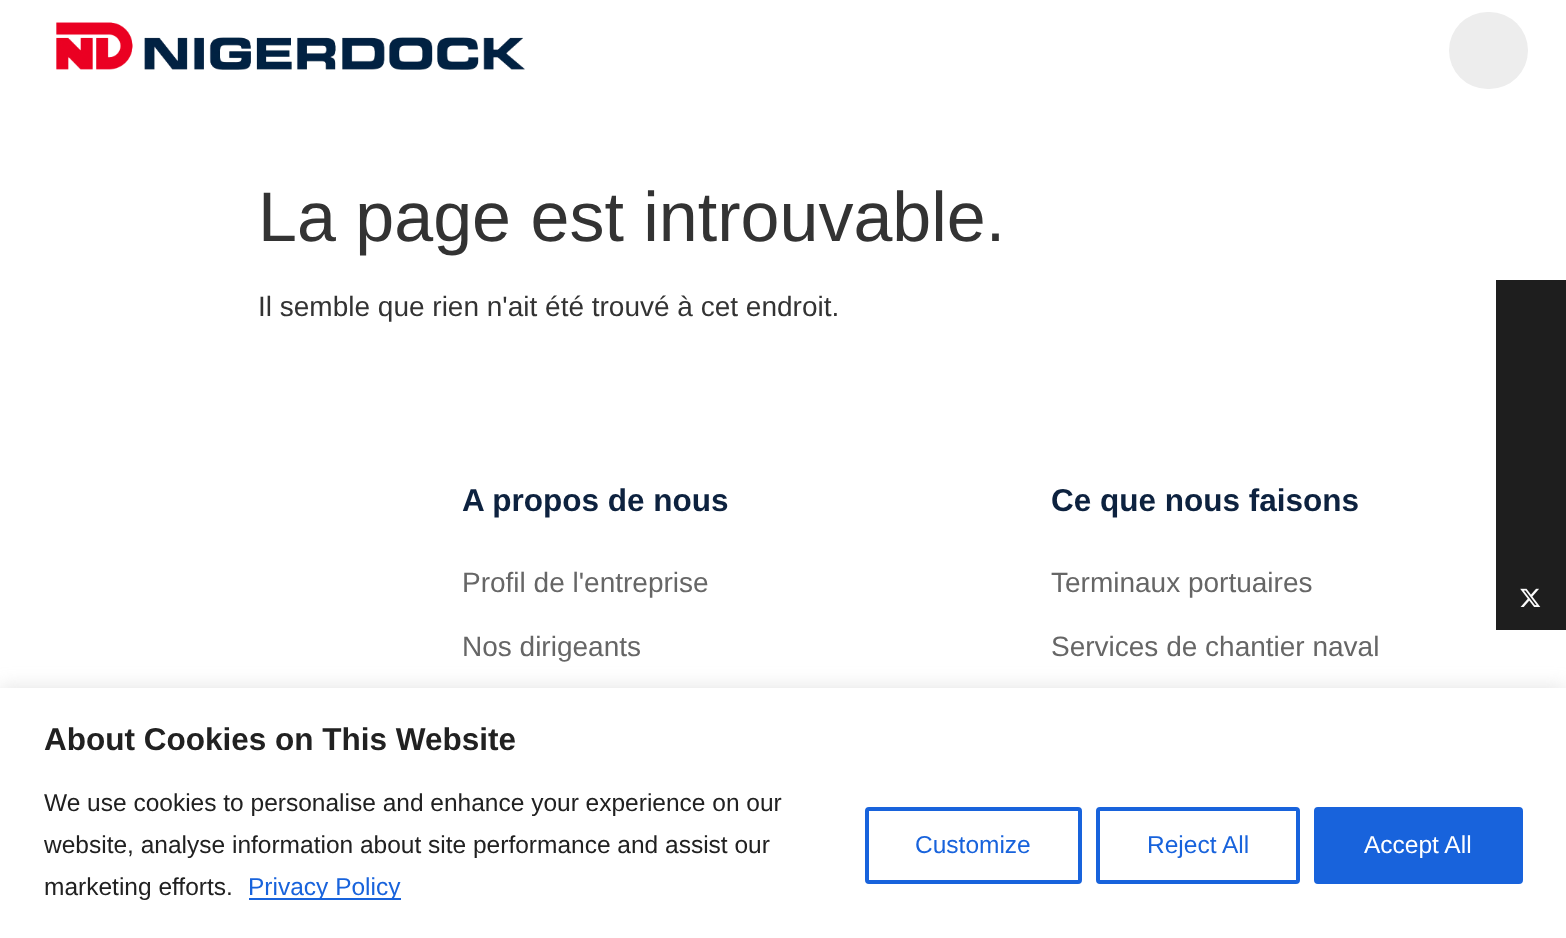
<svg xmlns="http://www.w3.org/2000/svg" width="1566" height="938">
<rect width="100%" height="100%" fill="#fff"/>
<image x="56" y="22" width="469" height="48" href="media/1.png"/>
<rect x="1449" y="12" width="79" height="77" rx="38.5" fill="#ededed"/>
<text x="258" y="241" style="font-family:Liberation Sans;font-size:70px;fill:#333">La page est introuvable.</text>
<text x="258" y="316" style="font-family:Liberation Sans;font-size:28px;fill:#333">Il semble que rien n'ait été trouvé à cet endroit.</text>
<text x="462" y="511" style="font-family:Liberation Sans;font-size:31.5px;font-weight:bold;fill:#0d223f">A propos de nous</text>
<text x="462" y="592" style="font-family:Liberation Sans;font-size:28px;fill:#666">Profil de l'entreprise</text>
<text x="462" y="656" style="font-family:Liberation Sans;font-size:28px;fill:#666">Nos dirigeants</text>
<text x="1051" y="511" style="font-family:Liberation Sans;font-size:31.5px;font-weight:bold;fill:#0d223f">Ce que nous faisons</text>
<text x="1051" y="592" style="font-family:Liberation Sans;font-size:28px;fill:#666">Terminaux portuaires</text>
<text x="1051" y="656" style="font-family:Liberation Sans;font-size:28px;fill:#666">Services de chantier naval</text>
<rect x="1496" y="280" width="70" height="350" fill="#1e1e1e"/>
<image x="1520" y="588" width="21" height="19" href="media/2.png"/>
<rect y="686" width="1566" height="250" fill="#acabab4d" filter="blur(9px)"/>
<rect y="688" width="1566" height="250" fill="#fff"/>
<text x="44" y="750" style="font-family:Liberation Sans;font-size:31.5px;font-weight:bold;fill:#212121">About Cookies on This Website</text>
<text x="44" y="811" style="font-family:Liberation Sans;font-size:24.5px;fill:#212121">We use cookies to personalise and enhance your experience on our</text>
<text x="44" y="853" style="font-family:Liberation Sans;font-size:24.5px;fill:#212121">website, analyse information about site performance and assist our</text>
<text x="44" y="895" style="font-family:Liberation Sans;font-size:24.5px;fill:#212121">marketing efforts.</text>
<rect x="249" y="898" width="152" height="2" fill="#1863dc"/>
<text x="248" y="895" style="font-family:Liberation Sans;font-size:24.5px;fill:#1863dc">Privacy Policy</text>
<rect x="867" y="809" width="213" height="73" rx="2" fill="none" stroke="#1863dc" stroke-width="4"/>
<text x="915" y="853" style="font-family:Liberation Sans;font-size:24.5px;fill:#1863dc">Customize</text>
<rect x="1098" y="809" width="200" height="73" rx="2" fill="none" stroke="#1863dc" stroke-width="4"/>
<text x="1147" y="853" style="font-family:Liberation Sans;font-size:24.5px;fill:#1863dc">Reject All</text>
<rect x="1316" y="809" width="205" height="73" rx="2" fill="#1863dc" stroke="#1863dc" stroke-width="4"/>
<text x="1364" y="853" style="font-family:Liberation Sans;font-size:24.5px;fill:#fff">Accept All</text>
</svg>
